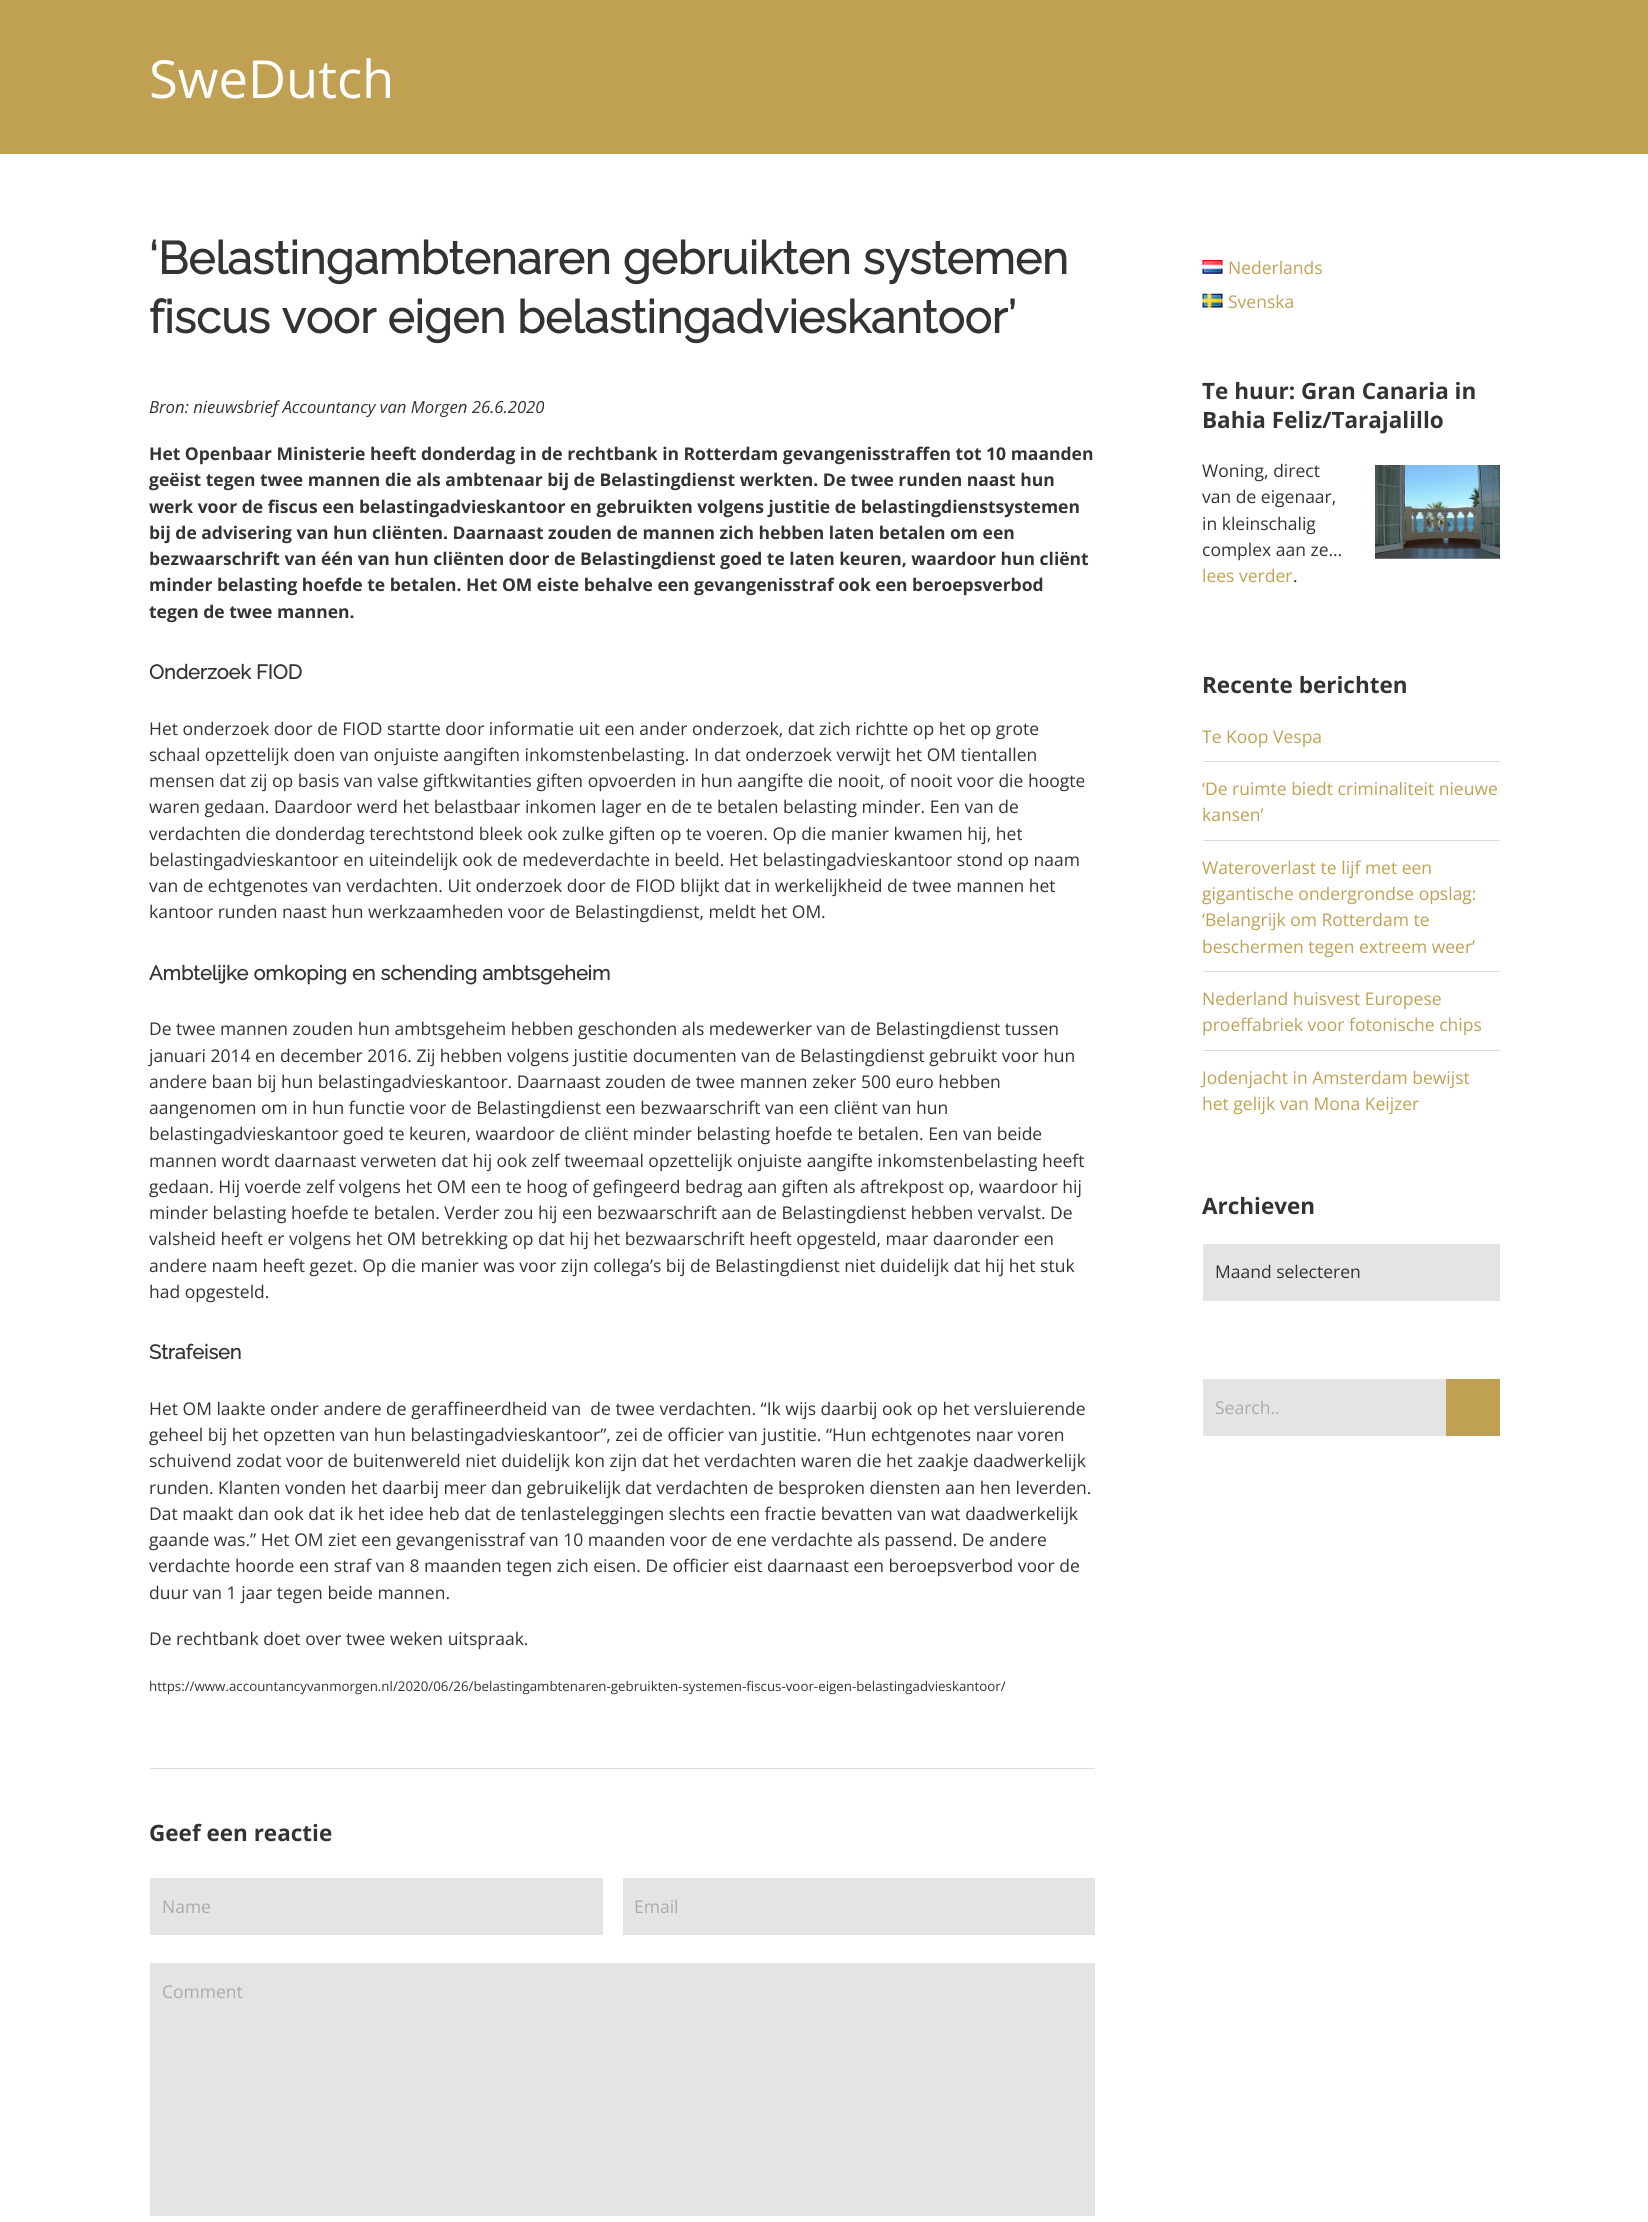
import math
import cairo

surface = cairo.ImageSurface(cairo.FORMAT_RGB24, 1648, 2222)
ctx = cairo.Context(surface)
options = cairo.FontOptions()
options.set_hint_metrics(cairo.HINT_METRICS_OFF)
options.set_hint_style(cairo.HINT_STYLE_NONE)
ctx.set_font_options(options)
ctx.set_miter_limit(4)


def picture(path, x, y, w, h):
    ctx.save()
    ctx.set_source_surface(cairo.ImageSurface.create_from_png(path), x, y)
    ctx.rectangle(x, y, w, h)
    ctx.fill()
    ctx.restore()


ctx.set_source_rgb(1, 1, 1)
ctx.paint()
ctx.set_source_rgb(0.753, 0.631, 0.329)
ctx.rectangle(0, 0, 1648, 154)
ctx.fill()
ctx.select_font_face("Open Sans")
ctx.set_font_size(52.5)
ctx.set_source_rgb(1, 1, 1)
ctx.move_to(149, 98)
ctx.show_text("SweDutch")
ctx.select_font_face("Raleway", cairo.FONT_SLANT_NORMAL, cairo.FONT_WEIGHT_BOLD)
ctx.set_font_size(45.5)
ctx.set_source_rgb(0.2, 0.2, 0.2)
ctx.move_to(149, 274)
ctx.show_text("‘Belastingambtenaren gebruikten systemen")
ctx.move_to(149, 333)
ctx.show_text("fiscus voor eigen belastingadvieskantoor’")
ctx.select_font_face("Open Sans", cairo.FONT_SLANT_ITALIC)
ctx.set_font_size(16.7)
ctx.move_to(149, 413)
ctx.show_text("Bron: nieuwsbrief Accountancy van Morgen 26.6.2020")
ctx.select_font_face("Open Sans", cairo.FONT_SLANT_NORMAL, cairo.FONT_WEIGHT_BOLD)
ctx.set_font_size(17.5)
ctx.move_to(149, 460)
ctx.show_text("Het Openbaar Ministerie heeft donderdag in de rechtbank in Rotterdam gevangenisstraffen tot 10 maanden")
ctx.move_to(149, 486)
ctx.show_text("geëist tegen twee mannen die als ambtenaar bij de Belastingdienst werkten. De twee runden naast hun")
ctx.move_to(149, 513)
ctx.show_text("werk voor de fiscus een belastingadvieskantoor en gebruikten volgens justitie de belastingdienstsystemen")
ctx.move_to(149, 539)
ctx.show_text("bij de advisering van hun cliënten. Daarnaast zouden de mannen zich hebben laten betalen om een")
ctx.move_to(149, 565)
ctx.show_text("bezwaarschrift van één van hun cliënten door de Belastingdienst goed te laten keuren, waardoor hun cliënt")
ctx.move_to(149, 591)
ctx.show_text("minder belasting hoefde te betalen. Het OM eiste behalve een gevangenisstraf ook een beroepsverbod")
ctx.move_to(149, 618)
ctx.show_text("tegen de twee mannen.")
ctx.select_font_face("Raleway", cairo.FONT_SLANT_NORMAL, cairo.FONT_WEIGHT_BOLD)
ctx.set_font_size(20)
ctx.move_to(149, 679)
ctx.show_text("Onderzoek FIOD")
ctx.select_font_face("Open Sans")
ctx.set_font_size(17.5)
ctx.move_to(149, 735)
ctx.show_text("Het onderzoek door de FIOD startte door informatie uit een ander onderzoek, dat zich richtte op het op grote")
ctx.move_to(149, 761)
ctx.show_text("schaal opzettelijk doen van onjuiste aangiften inkomstenbelasting. In dat onderzoek verwijt het OM tientallen")
ctx.move_to(149, 787)
ctx.show_text("mensen dat zij op basis van valse giftkwitanties giften opvoerden in hun aangifte die nooit, of nooit voor die hoogte")
ctx.move_to(149, 813)
ctx.show_text("waren gedaan. Daardoor werd het belastbaar inkomen lager en de te betalen belasting minder. Een van de")
ctx.move_to(149, 840)
ctx.show_text("verdachten die donderdag terechtstond bleek ook zulke giften op te voeren. Op die manier kwamen hij, het")
ctx.move_to(149, 866)
ctx.show_text("belastingadvieskantoor en uiteindelijk ook de medeverdachte in beeld. Het belastingadvieskantoor stond op naam")
ctx.move_to(149, 892)
ctx.show_text("van de echtgenotes van verdachten. Uit onderzoek door de FIOD blijkt dat in werkelijkheid de twee mannen het")
ctx.move_to(149, 918)
ctx.show_text("kantoor runden naast hun werkzaamheden voor de Belastingdienst, meldt het OM.")
ctx.select_font_face("Raleway", cairo.FONT_SLANT_NORMAL, cairo.FONT_WEIGHT_BOLD)
ctx.set_font_size(20)
ctx.move_to(149, 980)
ctx.show_text("Ambtelijke omkoping en schending ambtsgeheim")
ctx.select_font_face("Open Sans")
ctx.set_font_size(17.5)
ctx.move_to(149, 1035)
ctx.show_text("De twee mannen zouden hun ambtsgeheim hebben geschonden als medewerker van de Belastingdienst tussen")
ctx.move_to(149, 1062)
ctx.show_text("januari 2014 en december 2016. Zij hebben volgens justitie documenten van de Belastingdienst gebruikt voor hun")
ctx.move_to(149, 1088)
ctx.show_text("andere baan bij hun belastingadvieskantoor. Daarnaast zouden de twee mannen zeker 500 euro hebben")
ctx.move_to(149, 1114)
ctx.show_text("aangenomen om in hun functie voor de Belastingdienst een bezwaarschrift van een cliënt van hun")
ctx.move_to(149, 1140)
ctx.show_text("belastingadvieskantoor goed te keuren, waardoor de cliënt minder belasting hoefde te betalen. Een van beide")
ctx.move_to(149, 1167)
ctx.show_text("mannen wordt daarnaast verweten dat hij ook zelf tweemaal opzettelijk onjuiste aangifte inkomstenbelasting heeft")
ctx.move_to(149, 1193)
ctx.show_text("gedaan. Hij voerde zelf volgens het OM een te hoog of gefingeerd bedrag aan giften als aftrekpost op, waardoor hij")
ctx.move_to(149, 1219)
ctx.show_text("minder belasting hoefde te betalen. Verder zou hij een bezwaarschrift aan de Belastingdienst hebben vervalst. De")
ctx.move_to(149, 1245)
ctx.show_text("valsheid heeft er volgens het OM betrekking op dat hij het bezwaarschrift heeft opgesteld, maar daaronder een")
ctx.move_to(149, 1272)
ctx.show_text("andere naam heeft gezet. Op die manier was voor zijn collega’s bij de Belastingdienst niet duidelijk dat hij het stuk")
ctx.move_to(149, 1298)
ctx.show_text("had opgesteld.")
ctx.select_font_face("Raleway", cairo.FONT_SLANT_NORMAL, cairo.FONT_WEIGHT_BOLD)
ctx.set_font_size(20)
ctx.move_to(149, 1359)
ctx.show_text("Strafeisen")
ctx.select_font_face("Open Sans")
ctx.set_font_size(17.5)
ctx.move_to(149, 1415)
ctx.show_text("Het OM laakte onder andere de geraffineerdheid van  de twee verdachten. “Ik wijs daarbij ook op het versluierende")
ctx.move_to(149, 1441)
ctx.show_text("geheel bij het opzetten van hun belastingadvieskantoor”, zei de officier van justitie. “Hun echtgenotes naar voren")
ctx.move_to(149, 1467)
ctx.show_text("schuivend zodat voor de buitenwereld niet duidelijk kon zijn dat het verdachten waren die het zaakje daadwerkelijk")
ctx.move_to(149, 1494)
ctx.show_text("runden. Klanten vonden het daarbij meer dan gebruikelijk dat verdachten de besproken diensten aan hen leverden.")
ctx.move_to(149, 1520)
ctx.show_text("Dat maakt dan ook dat ik het idee heb dat de tenlasteleggingen slechts een fractie bevatten van wat daadwerkelijk")
ctx.move_to(149, 1546)
ctx.show_text("gaande was.” Het OM ziet een gevangenisstraf van 10 maanden voor de ene verdachte als passend. De andere")
ctx.move_to(149, 1572)
ctx.show_text("verdachte hoorde een straf van 8 maanden tegen zich eisen. De officier eist daarnaast een beroepsverbod voor de")
ctx.move_to(149, 1599)
ctx.show_text("duur van 1 jaar tegen beide mannen.")
ctx.move_to(149, 1645)
ctx.show_text("De rechtbank doet over twee weken uitspraak.")
ctx.set_font_size(13.33)
ctx.move_to(149, 1691)
ctx.show_text("https://www.accountancyvanmorgen.nl/2020/06/26/belastingambtenaren-gebruikten-systemen-fiscus-voor-eigen-belastingadvieskantoor/")
ctx.set_source_rgb(0.867, 0.867, 0.867)
ctx.rectangle(150, 1768, 945, 1)
ctx.fill()
ctx.select_font_face("Open Sans", cairo.FONT_SLANT_NORMAL, cairo.FONT_WEIGHT_BOLD)
ctx.set_font_size(22.5)
ctx.set_source_rgb(0.2, 0.2, 0.2)
ctx.move_to(149, 1841)
ctx.show_text("Geef een reactie")
ctx.set_source_rgb(0.894, 0.894, 0.894)
ctx.rectangle(150, 1878, 453, 57)
ctx.fill()
ctx.select_font_face("Open Sans")
ctx.set_font_size(17.5)
ctx.set_source_rgb(0.667, 0.667, 0.667)
ctx.move_to(162, 1913)
ctx.show_text("Name")
ctx.set_source_rgb(0.894, 0.894, 0.894)
ctx.rectangle(623, 1878, 472, 57)
ctx.fill()
ctx.set_source_rgb(0.667, 0.667, 0.667)
ctx.move_to(634, 1913)
ctx.show_text("Email")
ctx.set_source_rgb(0.894, 0.894, 0.894)
ctx.rectangle(150, 1963, 945, 253)
ctx.fill()
ctx.set_source_rgb(0.667, 0.667, 0.667)
ctx.move_to(162, 1998)
ctx.show_text("Comment")
picture("img1.png", 1202, 260, 21, 14)
ctx.set_source_rgb(0.753, 0.631, 0.329)
ctx.move_to(1228, 274)
ctx.show_text("Nederlands")
picture("img2.png", 1202, 293, 21, 15)
ctx.move_to(1228, 308)
ctx.show_text("Svenska")
ctx.select_font_face("Open Sans", cairo.FONT_SLANT_NORMAL, cairo.FONT_WEIGHT_BOLD)
ctx.set_font_size(22.5)
ctx.set_source_rgb(0.2, 0.2, 0.2)
ctx.move_to(1202, 399)
ctx.show_text("Te huur: Gran Canaria in")
ctx.move_to(1202, 428)
ctx.show_text("Bahia Feliz/Tarajalillo")
ctx.select_font_face("Open Sans")
ctx.set_font_size(17.5)
ctx.move_to(1202, 477)
ctx.show_text("Woning, direct")
picture("img3.png", 1375, 465, 125, 94)
ctx.move_to(1202, 503)
ctx.show_text("van de eigenaar,")
ctx.move_to(1202, 530)
ctx.show_text("in kleinschalig")
ctx.move_to(1202, 556)
ctx.show_text("complex aan ze…")
ctx.set_source_rgb(0.753, 0.631, 0.329)
ctx.move_to(1202, 582)
ctx.show_text("lees verder")
ctx.set_source_rgb(0.2, 0.2, 0.2)
ctx.move_to(1293, 582)
ctx.show_text(".")
ctx.select_font_face("Open Sans", cairo.FONT_SLANT_NORMAL, cairo.FONT_WEIGHT_BOLD)
ctx.set_font_size(22.5)
ctx.move_to(1202, 693)
ctx.show_text("Recente berichten")
ctx.set_source_rgb(0.867, 0.867, 0.867)
ctx.rectangle(1203, 761, 297, 1)
ctx.fill()
ctx.select_font_face("Open Sans")
ctx.set_font_size(17.5)
ctx.set_source_rgb(0.753, 0.631, 0.329)
ctx.move_to(1202, 743)
ctx.show_text("Te Koop Vespa")
ctx.set_source_rgb(0.867, 0.867, 0.867)
ctx.rectangle(1203, 840, 297, 1)
ctx.fill()
ctx.set_source_rgb(0.753, 0.631, 0.329)
ctx.move_to(1202, 795)
ctx.show_text("‘De ruimte biedt criminaliteit nieuwe")
ctx.move_to(1202, 821)
ctx.show_text("kansen’")
ctx.set_source_rgb(0.867, 0.867, 0.867)
ctx.rectangle(1203, 971, 297, 1)
ctx.fill()
ctx.set_source_rgb(0.753, 0.631, 0.329)
ctx.move_to(1202, 874)
ctx.show_text("Wateroverlast te lijf met een")
ctx.move_to(1202, 900)
ctx.show_text("gigantische ondergrondse opslag:")
ctx.move_to(1202, 926)
ctx.show_text("‘Belangrijk om Rotterdam te")
ctx.move_to(1202, 953)
ctx.show_text("beschermen tegen extreem weer’")
ctx.set_source_rgb(0.867, 0.867, 0.867)
ctx.rectangle(1203, 1050, 297, 1)
ctx.fill()
ctx.set_source_rgb(0.753, 0.631, 0.329)
ctx.move_to(1202, 1005)
ctx.show_text("Nederland huisvest Europese")
ctx.move_to(1202, 1031)
ctx.show_text("proeffabriek voor fotonische chips")
ctx.move_to(1202, 1084)
ctx.show_text("Jodenjacht in Amsterdam bewijst")
ctx.move_to(1202, 1110)
ctx.show_text("het gelijk van Mona Keijzer")
ctx.select_font_face("Open Sans", cairo.FONT_SLANT_NORMAL, cairo.FONT_WEIGHT_BOLD)
ctx.set_font_size(22.5)
ctx.set_source_rgb(0.2, 0.2, 0.2)
ctx.move_to(1202, 1214)
ctx.show_text("Archieven")
ctx.set_source_rgb(0.894, 0.894, 0.894)
ctx.rectangle(1203, 1244, 297, 57)
ctx.fill()
ctx.select_font_face("Open Sans")
ctx.set_font_size(17.5)
ctx.set_source_rgb(0.2, 0.2, 0.2)
ctx.move_to(1215, 1278)
ctx.show_text("Maand selecteren")
ctx.set_source_rgb(0.894, 0.894, 0.894)
ctx.rectangle(1203, 1379, 243, 57)
ctx.fill()
ctx.set_source_rgb(0.667, 0.667, 0.667)
ctx.move_to(1215, 1414)
ctx.show_text("Search..")
ctx.set_source_rgb(0.753, 0.631, 0.329)
ctx.rectangle(1446, 1379, 54, 57)
ctx.fill()
surface.write_to_png("page.png")
